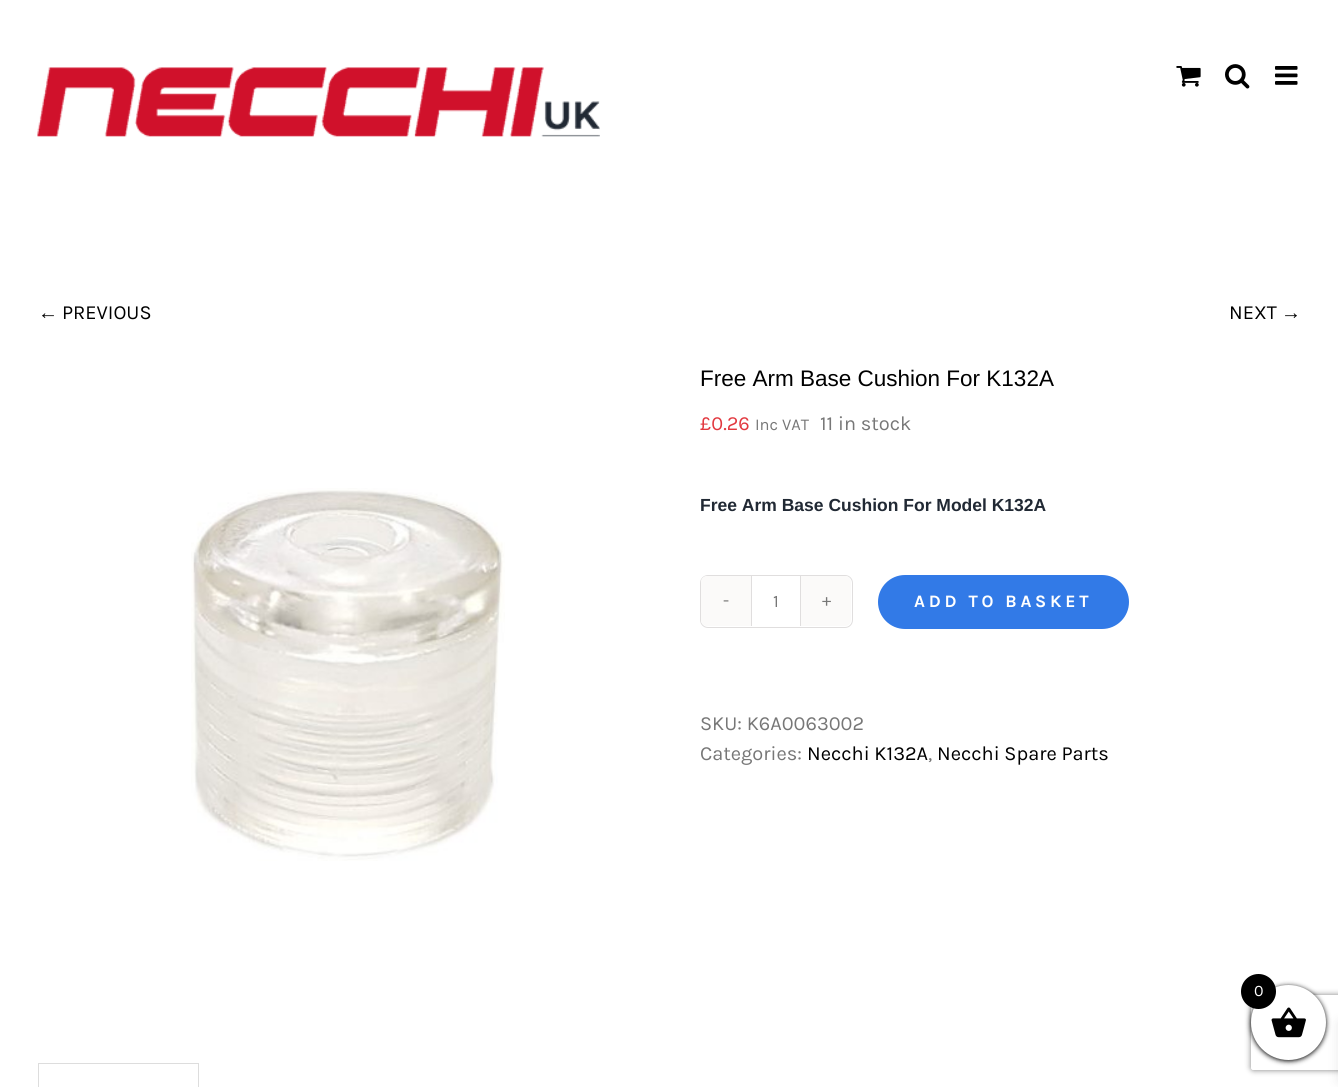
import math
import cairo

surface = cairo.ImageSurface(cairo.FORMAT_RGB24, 1338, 1087)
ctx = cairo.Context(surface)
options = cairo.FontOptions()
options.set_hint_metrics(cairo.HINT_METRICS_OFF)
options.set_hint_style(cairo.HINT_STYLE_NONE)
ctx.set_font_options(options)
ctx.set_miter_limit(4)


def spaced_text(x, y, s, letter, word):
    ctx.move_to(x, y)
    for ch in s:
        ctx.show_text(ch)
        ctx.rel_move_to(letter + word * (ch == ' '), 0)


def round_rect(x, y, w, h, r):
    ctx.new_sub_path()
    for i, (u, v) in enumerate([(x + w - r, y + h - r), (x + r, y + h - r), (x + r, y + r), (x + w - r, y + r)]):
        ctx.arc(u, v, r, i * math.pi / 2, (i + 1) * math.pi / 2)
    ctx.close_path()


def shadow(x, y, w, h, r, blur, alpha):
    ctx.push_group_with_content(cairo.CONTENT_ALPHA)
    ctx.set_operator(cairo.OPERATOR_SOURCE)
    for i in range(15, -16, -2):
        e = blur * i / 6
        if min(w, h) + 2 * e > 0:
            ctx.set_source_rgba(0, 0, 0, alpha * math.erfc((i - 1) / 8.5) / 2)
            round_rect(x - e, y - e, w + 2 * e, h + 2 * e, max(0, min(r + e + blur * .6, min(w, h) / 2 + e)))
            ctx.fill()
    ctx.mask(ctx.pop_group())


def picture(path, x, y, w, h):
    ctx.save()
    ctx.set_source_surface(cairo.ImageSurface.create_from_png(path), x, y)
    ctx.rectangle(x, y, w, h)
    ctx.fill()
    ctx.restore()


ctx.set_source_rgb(1, 1, 1)
ctx.paint()
picture("img1.png", 37, 67, 563, 70)
picture("img2.png", 1176, 66, 25, 21)
picture("img3.png", 1225, 64, 25, 25)
picture("img4.png", 1275, 66, 23, 19)
ctx.select_font_face("Liberation Sans")
ctx.set_font_size(20)
ctx.set_source_rgb(0, 0, 0)
ctx.move_to(38, 319)
ctx.show_text("←")
ctx.select_font_face("Karla")
ctx.move_to(62, 319)
ctx.show_text("PREVIOUS")
ctx.move_to(1229, 319)
ctx.show_text("NEXT")
ctx.select_font_face("Liberation Sans")
ctx.move_to(1281, 319)
ctx.show_text("→")
picture("img5.png", 191, 488, 314, 373)
ctx.set_font_size(22.5)
ctx.move_to(700, 386)
ctx.show_text("Free Arm Base Cushion For K132A")
ctx.select_font_face("Karla")
ctx.set_font_size(20)
ctx.set_source_rgb(0.886, 0.22, 0.247)
ctx.move_to(700, 430)
ctx.show_text("£0.26")
ctx.set_font_size(16.5)
ctx.set_source_rgb(0.467, 0.467, 0.467)
ctx.move_to(755, 430)
ctx.show_text("Inc VAT")
ctx.set_font_size(20)
ctx.move_to(820, 430)
ctx.show_text("11 in stock")
ctx.select_font_face("Liberation Sans", cairo.FONT_SLANT_NORMAL, cairo.FONT_WEIGHT_BOLD)
ctx.set_font_size(17.5)
ctx.set_source_rgb(0.129, 0.161, 0.204)
ctx.move_to(700, 511)
ctx.show_text("Free Arm Base Cushion For Model K132A")
round_rect(700.5, 575.5, 152, 52, 7.5)
ctx.set_source_rgb(0.878, 0.871, 0.871)
ctx.set_line_width(1)
ctx.stroke()
ctx.set_source_rgb(0.984, 0.98, 0.976)
ctx.new_path()
ctx.move_to(707, 576)
ctx.line_to(751, 576)
ctx.line_to(751, 626)
ctx.line_to(707, 626)
ctx.curve_to(703.5, 626, 701, 623.5, 701, 620)
ctx.line_to(701, 582)
ctx.curve_to(701, 578.5, 703.5, 576, 707, 576)
ctx.close_path()
ctx.fill()
ctx.select_font_face("Karla")
ctx.set_source_rgb(0.467, 0.467, 0.467)
ctx.move_to(723, 606)
ctx.show_text("-")
ctx.set_source_rgb(0.878, 0.871, 0.871)
ctx.rectangle(800, 576, 1, 50)
ctx.fill()
ctx.rectangle(751, 576, 1, 50)
ctx.fill()
ctx.set_source_rgb(0.467, 0.467, 0.467)
ctx.move_to(773, 607)
ctx.show_text("1")
ctx.set_source_rgb(0.984, 0.98, 0.976)
ctx.new_path()
ctx.move_to(801, 576)
ctx.line_to(845, 576)
ctx.curve_to(848.5, 576, 851, 578.5, 851, 582)
ctx.line_to(851, 620)
ctx.curve_to(851, 623.5, 848.5, 626, 845, 626)
ctx.line_to(801, 626)
ctx.close_path()
ctx.fill()
ctx.set_source_rgb(0.467, 0.467, 0.467)
ctx.move_to(822, 606)
ctx.show_text("+")
ctx.set_source_rgb(0.196, 0.478, 0.906)
round_rect(878, 575, 251, 54, 27)
ctx.fill()
ctx.select_font_face("Karla", cairo.FONT_SLANT_NORMAL, cairo.FONT_WEIGHT_BOLD)
ctx.set_source_rgb(1, 1, 1)
spaced_text(914, 607, "ADD TO BASKET", 3.75, 0)
ctx.select_font_face("Karla")
ctx.set_font_size(20)
ctx.set_source_rgb(0.467, 0.467, 0.467)
ctx.move_to(700, 730)
ctx.show_text("SKU: K6A0063002")
ctx.move_to(700, 760)
ctx.show_text("Categories:")
ctx.set_source_rgb(0, 0, 0)
ctx.move_to(807, 760)
ctx.show_text("Necchi K132A")
ctx.set_source_rgb(0.467, 0.467, 0.467)
ctx.move_to(928, 760)
ctx.show_text(",")
ctx.set_source_rgb(0, 0, 0)
ctx.move_to(937, 760)
ctx.show_text("Necchi Spare Parts")
ctx.set_source_rgb(0.867, 0.867, 0.867)
ctx.rectangle(38, 1063, 161, 1)
ctx.fill()
ctx.rectangle(198, 1063, 1, 24)
ctx.fill()
ctx.rectangle(38, 1063, 1, 24)
ctx.fill()
ctx.save()
ctx.set_fill_rule(cairo.FILL_RULE_EVEN_ODD)
ctx.new_path()
ctx.move_to(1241, 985)
ctx.line_to(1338, 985)
ctx.line_to(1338, 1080)
ctx.line_to(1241, 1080)
ctx.close_path()
ctx.move_to(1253.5, 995)
ctx.line_to(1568.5, 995)
ctx.curve_to(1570, 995, 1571, 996, 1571, 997.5)
ctx.line_to(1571, 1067.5)
ctx.curve_to(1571, 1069, 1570, 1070, 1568.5, 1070)
ctx.line_to(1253.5, 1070)
ctx.curve_to(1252, 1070, 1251, 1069, 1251, 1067.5)
ctx.line_to(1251, 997.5)
ctx.curve_to(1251, 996, 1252, 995, 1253.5, 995)
ctx.close_path()
ctx.clip()
ctx.set_source_rgb(0.502, 0.502, 0.502)
shadow(1251, 995, 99, 75, 2.5, 3, 1)
ctx.restore()
ctx.set_source_rgb(0, 0, 0)
shadow(1251, 986, 75, 75, 37.5, 2.5, 1)
shadow(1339, 1023, 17, 58, 0, 6, 0.1)
ctx.set_source_rgb(1, 1, 1)
ctx.arc(1288.5, 1022.5, 37.5, 0, 2 * math.pi)
ctx.fill()
picture("img6.png", 1271, 1007, 35, 31)
ctx.set_source_rgb(0, 0, 0)
ctx.arc(1258.5, 991.5, 17.5, 0, 2 * math.pi)
ctx.fill()
ctx.set_font_size(16)
ctx.set_source_rgb(1, 1, 1)
ctx.move_to(1254, 996)
ctx.show_text("0")
surface.write_to_png("page.png")
